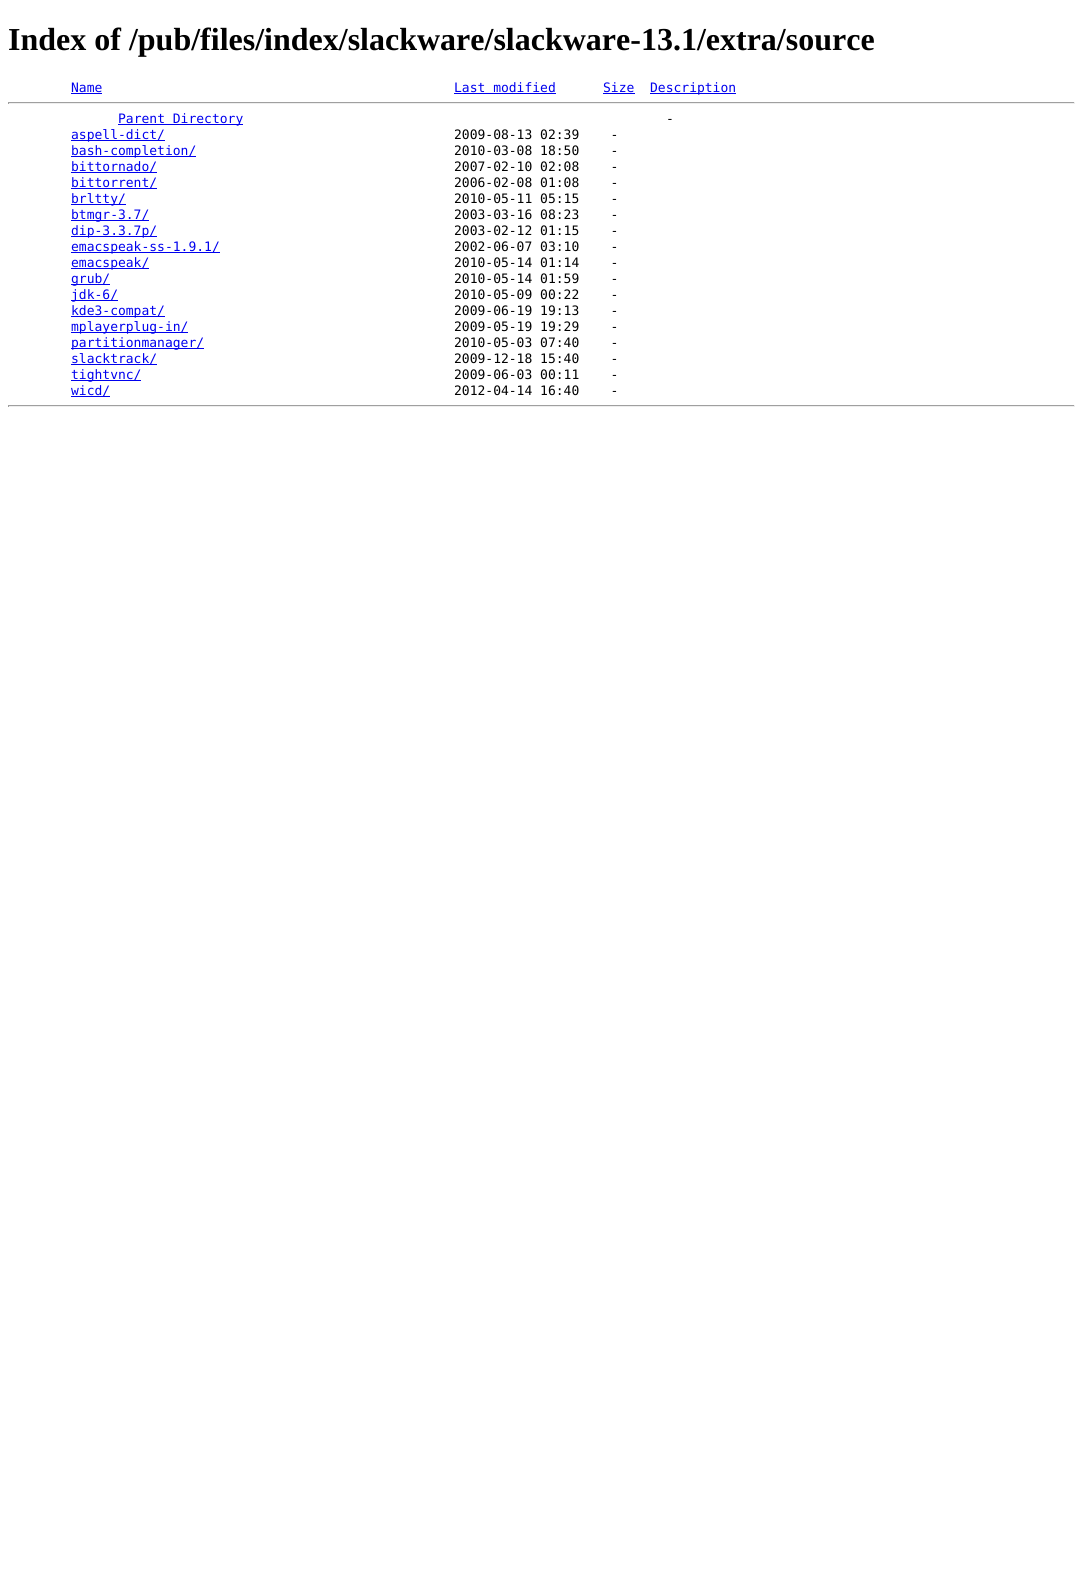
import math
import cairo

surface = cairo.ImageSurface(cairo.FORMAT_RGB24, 1083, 1577)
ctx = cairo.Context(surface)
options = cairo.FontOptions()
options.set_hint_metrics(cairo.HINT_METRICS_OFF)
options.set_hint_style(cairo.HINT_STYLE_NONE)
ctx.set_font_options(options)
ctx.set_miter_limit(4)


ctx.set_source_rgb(1, 1, 1)
ctx.paint()
ctx.select_font_face("Liberation Serif", cairo.FONT_SLANT_NORMAL, cairo.FONT_WEIGHT_BOLD)
ctx.set_font_size(32)
ctx.set_source_rgb(0, 0, 0)
ctx.move_to(8, 50)
ctx.show_text("Index of /pub/files/index/slackware/slackware-13.1/extra/source")
ctx.select_font_face("DejaVu Sans Mono")
ctx.set_font_size(13)
ctx.set_source_rgb(0, 0, 0.933)
ctx.move_to(71, 92)
ctx.show_text("Name")
ctx.rectangle(71, 93, 31, 1)
ctx.fill()
ctx.move_to(454, 92)
ctx.show_text("Last modified")
ctx.rectangle(454, 93, 102, 1)
ctx.fill()
ctx.move_to(603, 92)
ctx.show_text("Size")
ctx.rectangle(603, 93, 32, 1)
ctx.fill()
ctx.rectangle(650, 93, 86, 1)
ctx.fill()
ctx.move_to(650, 92)
ctx.show_text("Description")
ctx.set_source_rgb(0.624, 0.624, 0.624)
ctx.rectangle(8, 102, 1067, 1)
ctx.fill()
ctx.set_source_rgb(0.933, 0.933, 0.933)
ctx.rectangle(1074, 102, 1, 2)
ctx.fill()
ctx.rectangle(8, 103, 1067, 1)
ctx.fill()
ctx.set_source_rgb(0.624, 0.624, 0.624)
ctx.rectangle(8, 102, 1, 2)
ctx.fill()
ctx.set_source_rgb(0, 0, 0.933)
ctx.rectangle(118, 124, 125, 1)
ctx.fill()
ctx.move_to(118, 123)
ctx.show_text("Parent Directory")
ctx.set_source_rgb(0, 0, 0)
ctx.move_to(666, 123)
ctx.show_text("-")
ctx.set_source_rgb(0, 0, 0.933)
ctx.rectangle(71, 140, 94, 1)
ctx.fill()
ctx.move_to(71, 139)
ctx.show_text("aspell-dict/")
ctx.set_source_rgb(0, 0, 0)
ctx.move_to(454, 139)
ctx.show_text("2009-08-13 02:39    -")
ctx.set_source_rgb(0, 0, 0.933)
ctx.rectangle(71, 156, 125, 1)
ctx.fill()
ctx.move_to(71, 155)
ctx.show_text("bash-completion/")
ctx.set_source_rgb(0, 0, 0)
ctx.move_to(454, 155)
ctx.show_text("2010-03-08 18:50    -")
ctx.set_source_rgb(0, 0, 0.933)
ctx.rectangle(71, 172, 86, 1)
ctx.fill()
ctx.move_to(71, 171)
ctx.show_text("bittornado/")
ctx.set_source_rgb(0, 0, 0)
ctx.move_to(454, 171)
ctx.show_text("2007-02-10 02:08    -")
ctx.set_source_rgb(0, 0, 0.933)
ctx.rectangle(71, 188, 86, 1)
ctx.fill()
ctx.move_to(71, 187)
ctx.show_text("bittorrent/")
ctx.set_source_rgb(0, 0, 0)
ctx.move_to(454, 187)
ctx.show_text("2006-02-08 01:08    -")
ctx.set_source_rgb(0, 0, 0.933)
ctx.rectangle(71, 204, 55, 1)
ctx.fill()
ctx.move_to(71, 203)
ctx.show_text("brltty/")
ctx.set_source_rgb(0, 0, 0)
ctx.move_to(454, 203)
ctx.show_text("2010-05-11 05:15    -")
ctx.set_source_rgb(0, 0, 0.933)
ctx.rectangle(71, 220, 78, 1)
ctx.fill()
ctx.move_to(71, 219)
ctx.show_text("btmgr-3.7/")
ctx.set_source_rgb(0, 0, 0)
ctx.move_to(454, 219)
ctx.show_text("2003-03-16 08:23    -")
ctx.set_source_rgb(0, 0, 0.933)
ctx.rectangle(71, 236, 86, 1)
ctx.fill()
ctx.move_to(71, 235)
ctx.show_text("dip-3.3.7p/")
ctx.set_source_rgb(0, 0, 0)
ctx.move_to(454, 235)
ctx.show_text("2003-02-12 01:15    -")
ctx.set_source_rgb(0, 0, 0.933)
ctx.rectangle(71, 252, 149, 1)
ctx.fill()
ctx.move_to(71, 251)
ctx.show_text("emacspeak-ss-1.9.1/")
ctx.set_source_rgb(0, 0, 0)
ctx.move_to(454, 251)
ctx.show_text("2002-06-07 03:10    -")
ctx.set_source_rgb(0, 0, 0.933)
ctx.rectangle(71, 268, 78, 1)
ctx.fill()
ctx.move_to(71, 267)
ctx.show_text("emacspeak/")
ctx.set_source_rgb(0, 0, 0)
ctx.move_to(454, 267)
ctx.show_text("2010-05-14 01:14    -")
ctx.set_source_rgb(0, 0, 0.933)
ctx.rectangle(71, 284, 39, 1)
ctx.fill()
ctx.move_to(71, 283)
ctx.show_text("grub/")
ctx.set_source_rgb(0, 0, 0)
ctx.move_to(454, 283)
ctx.show_text("2010-05-14 01:59    -")
ctx.set_source_rgb(0, 0, 0.933)
ctx.rectangle(71, 300, 47, 1)
ctx.fill()
ctx.move_to(71, 299)
ctx.show_text("jdk-6/")
ctx.set_source_rgb(0, 0, 0)
ctx.move_to(454, 299)
ctx.show_text("2010-05-09 00:22    -")
ctx.set_source_rgb(0, 0, 0.933)
ctx.rectangle(71, 316, 94, 1)
ctx.fill()
ctx.move_to(71, 315)
ctx.show_text("kde3-compat/")
ctx.set_source_rgb(0, 0, 0)
ctx.move_to(454, 315)
ctx.show_text("2009-06-19 19:13    -")
ctx.set_source_rgb(0, 0, 0.933)
ctx.rectangle(71, 332, 117, 1)
ctx.fill()
ctx.move_to(71, 331)
ctx.show_text("mplayerplug-in/")
ctx.set_source_rgb(0, 0, 0)
ctx.move_to(454, 331)
ctx.show_text("2009-05-19 19:29    -")
ctx.set_source_rgb(0, 0, 0.933)
ctx.rectangle(71, 348, 133, 1)
ctx.fill()
ctx.move_to(71, 347)
ctx.show_text("partitionmanager/")
ctx.set_source_rgb(0, 0, 0)
ctx.move_to(454, 347)
ctx.show_text("2010-05-03 07:40    -")
ctx.set_source_rgb(0, 0, 0.933)
ctx.rectangle(71, 364, 86, 1)
ctx.fill()
ctx.move_to(71, 363)
ctx.show_text("slacktrack/")
ctx.set_source_rgb(0, 0, 0)
ctx.move_to(454, 363)
ctx.show_text("2009-12-18 15:40    -")
ctx.set_source_rgb(0, 0, 0.933)
ctx.rectangle(71, 380, 70, 1)
ctx.fill()
ctx.move_to(71, 379)
ctx.show_text("tightvnc/")
ctx.set_source_rgb(0, 0, 0)
ctx.move_to(454, 379)
ctx.show_text("2009-06-03 00:11    -")
ctx.set_source_rgb(0, 0, 0.933)
ctx.rectangle(71, 396, 39, 1)
ctx.fill()
ctx.move_to(71, 395)
ctx.show_text("wicd/")
ctx.set_source_rgb(0, 0, 0)
ctx.move_to(454, 395)
ctx.show_text("2012-04-14 16:40    -")
ctx.set_source_rgb(0.624, 0.624, 0.624)
ctx.rectangle(8, 405, 1067, 1)
ctx.fill()
ctx.set_source_rgb(0.933, 0.933, 0.933)
ctx.rectangle(1074, 405, 1, 2)
ctx.fill()
ctx.rectangle(8, 406, 1067, 1)
ctx.fill()
ctx.set_source_rgb(0.624, 0.624, 0.624)
ctx.rectangle(8, 405, 1, 2)
ctx.fill()
surface.write_to_png("page.png")
